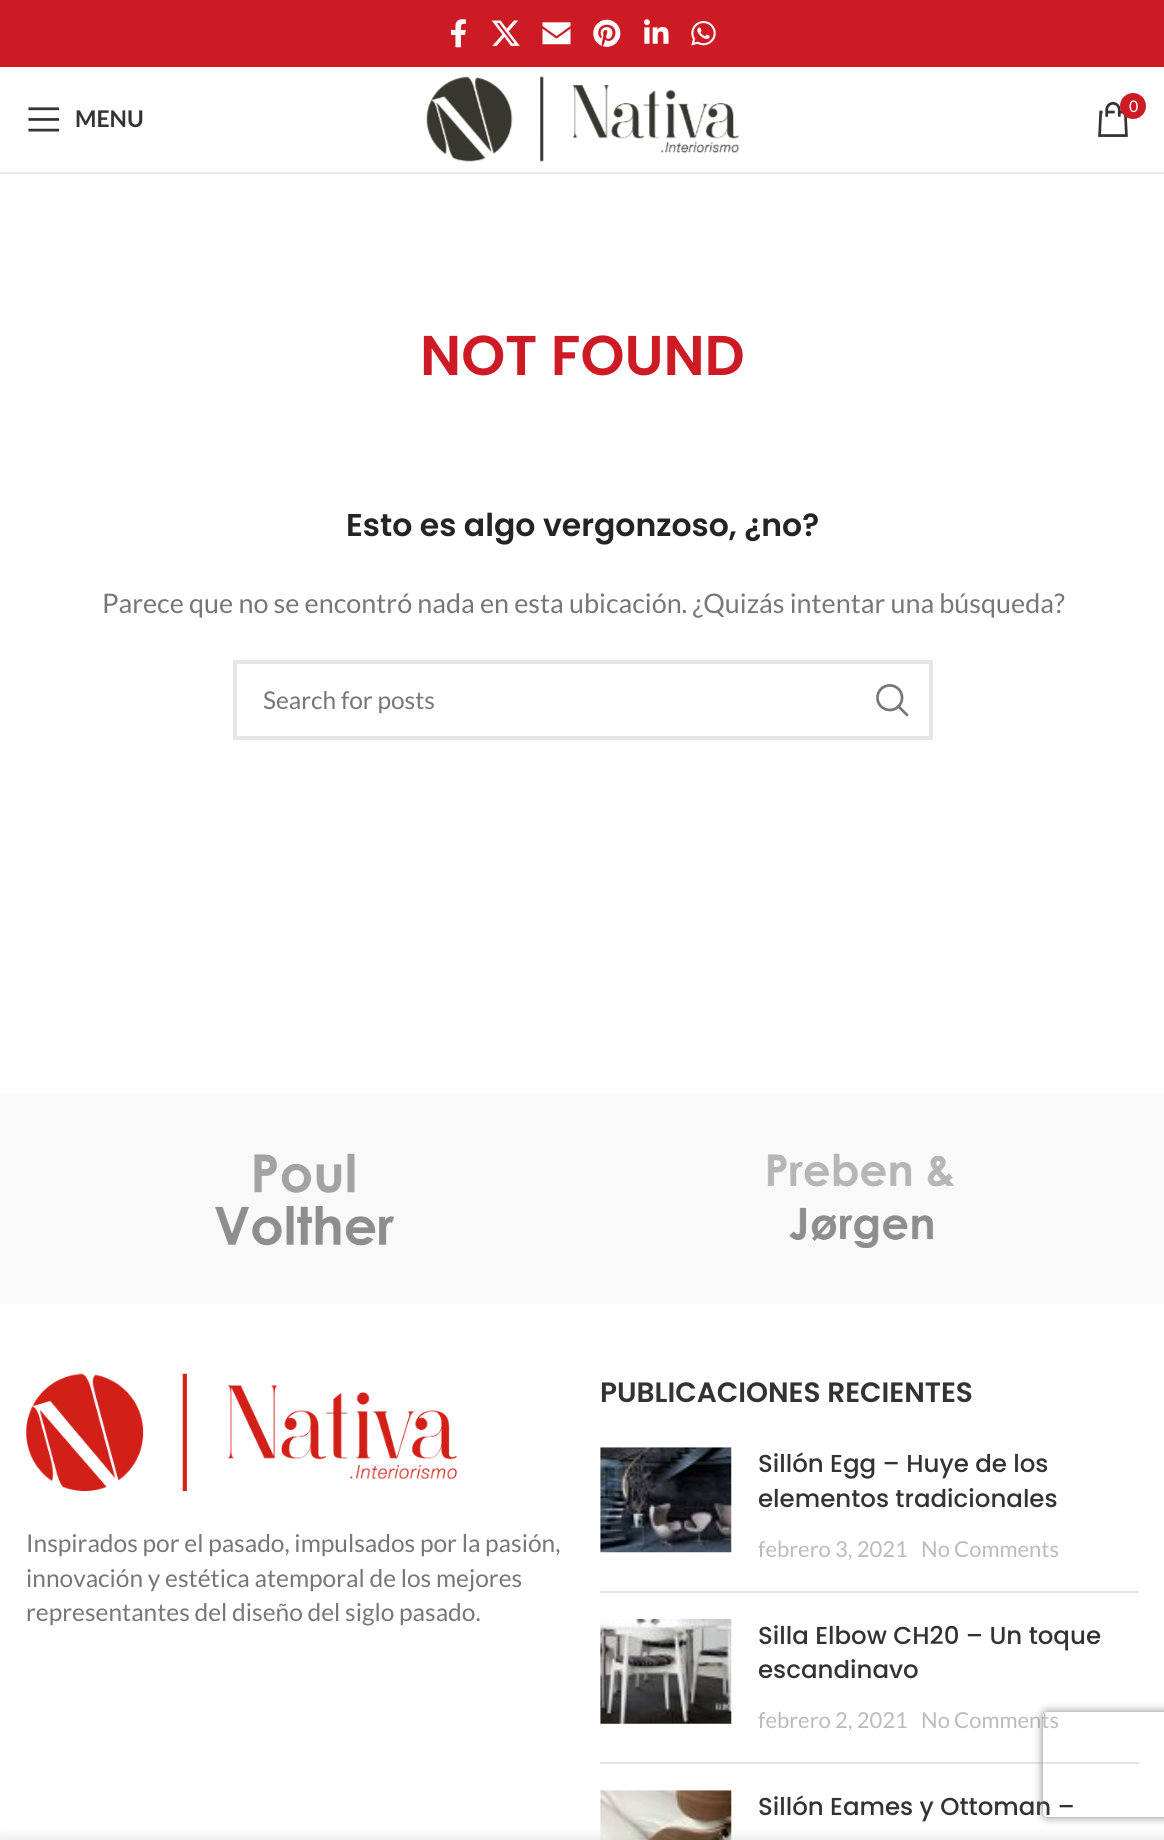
import math
import cairo

surface = cairo.ImageSurface(cairo.FORMAT_RGB24, 1164, 1840)
ctx = cairo.Context(surface)
options = cairo.FontOptions()
options.set_hint_metrics(cairo.HINT_METRICS_OFF)
options.set_hint_style(cairo.HINT_STYLE_NONE)
ctx.set_font_options(options)
ctx.set_miter_limit(4)


def round_rect(x, y, w, h, r):
    ctx.new_sub_path()
    for i, (u, v) in enumerate([(x + w - r, y + h - r), (x + r, y + h - r), (x + r, y + r), (x + w - r, y + r)]):
        ctx.arc(u, v, r, i * math.pi / 2, (i + 1) * math.pi / 2)
    ctx.close_path()


def shadow(x, y, w, h, r, blur, alpha):
    ctx.push_group_with_content(cairo.CONTENT_ALPHA)
    ctx.set_operator(cairo.OPERATOR_SOURCE)
    for i in range(15, -16, -2):
        e = blur * i / 6
        if min(w, h) + 2 * e > 0:
            ctx.set_source_rgba(0, 0, 0, alpha * math.erfc((i - 1) / 8.5) / 2)
            round_rect(x - e, y - e, w + 2 * e, h + 2 * e, max(0, min(r + e + blur * .6, min(w, h) / 2 + e)))
            ctx.fill()
    ctx.mask(ctx.pop_group())


def picture(path, x, y, w, h):
    ctx.save()
    ctx.set_source_surface(cairo.ImageSurface.create_from_png(path), x, y)
    ctx.rectangle(x, y, w, h)
    ctx.fill()
    ctx.restore()


ctx.set_source_rgb(1, 1, 1)
ctx.paint()
ctx.set_source_rgb(0.804, 0.106, 0.149)
ctx.rectangle(0, 0, 1164, 67)
ctx.fill()
picture("img1.png", 451, 19, 15, 29)
picture("img2.png", 491, 20, 29, 26)
picture("img3.png", 542, 22, 29, 23)
picture("img4.png", 593, 19, 28, 28)
picture("img5.png", 644, 19, 25, 25)
picture("img6.png", 691, 21, 25, 25)
ctx.set_source_rgb(0.91, 0.91, 0.91)
ctx.rectangle(0, 172, 1164, 2)
ctx.fill()
picture("img7.png", 426, 76, 314, 86)
picture("img8.png", 1098, 102, 30, 35)
ctx.set_source_rgb(0.804, 0.106, 0.149)
ctx.arc(1133, 106, 13, 0, 2 * math.pi)
ctx.fill()
ctx.select_font_face("Lato")
ctx.set_font_size(16)
ctx.set_source_rgb(1, 1, 1)
ctx.move_to(1129, 112)
ctx.show_text("0")
picture("img9.png", 28, 107, 32, 25)
ctx.select_font_face("Lato", cairo.FONT_SLANT_NORMAL, cairo.FONT_WEIGHT_BOLD)
ctx.set_font_size(23)
ctx.set_source_rgb(0.2, 0.2, 0.2)
ctx.move_to(75, 127)
ctx.show_text("MENU")
ctx.select_font_face("Poppins SemiBold")
ctx.set_font_size(56)
ctx.set_source_rgb(0.804, 0.106, 0.149)
ctx.move_to(420, 375)
ctx.show_text("NOT FOUND")
ctx.set_font_size(31.5)
ctx.set_source_rgb(0.141, 0.141, 0.141)
ctx.move_to(346, 536)
ctx.show_text("Esto es algo vergonzoso, ¿no?")
ctx.select_font_face("Lato")
ctx.set_font_size(26.95)
ctx.set_source_rgb(0.467, 0.467, 0.467)
ctx.move_to(102, 613)
ctx.show_text("Parece que no se encontró nada en esta ubicación. ¿Quizás intentar una búsqueda?")
ctx.rectangle(235, 662, 696, 76)
ctx.set_source_rgb(0.902, 0.902, 0.902)
ctx.set_line_width(4)
ctx.stroke()
ctx.set_font_size(24.5)
ctx.set_source_rgb(0.467, 0.467, 0.467)
ctx.move_to(263, 709)
ctx.show_text("Search for posts")
picture("img10.png", 876, 684, 33, 33)
ctx.set_source_rgb(0.976, 0.976, 0.976)
ctx.rectangle(0, 1094, 1164, 210)
ctx.fill()
picture("img11.png", 215, 1153, 180, 93)
picture("img12.png", 767, 1153, 188, 95)
picture("img13.png", 26, 1373, 431, 118)
ctx.set_source_rgb(0.467, 0.467, 0.467)
ctx.move_to(26, 1552)
ctx.show_text("Inspirados por el pasado, impulsados por la pasión,")
ctx.move_to(26, 1587)
ctx.show_text("innovación y estética atemporal de los mejores")
ctx.move_to(26, 1621)
ctx.show_text("representantes del diseño del siglo pasado.")
ctx.select_font_face("Poppins SemiBold")
ctx.set_font_size(28)
ctx.set_source_rgb(0.2, 0.2, 0.2)
ctx.move_to(600, 1402)
ctx.show_text("PUBLICACIONES RECIENTES")
ctx.set_source_rgb(0.894, 0.894, 0.894)
ctx.rectangle(600, 1591, 539, 2)
ctx.fill()
picture("img14.png", 600, 1447, 132, 106)
ctx.select_font_face("Poppins Medium")
ctx.set_font_size(24.5)
ctx.set_source_rgb(0.2, 0.2, 0.2)
ctx.move_to(758, 1472)
ctx.show_text("Sillón Egg – Huye de los")
ctx.move_to(758, 1507)
ctx.show_text("elementos tradicionales")
ctx.select_font_face("Lato")
ctx.set_font_size(22)
ctx.set_source_rgb(0.733, 0.733, 0.733)
ctx.move_to(758, 1557)
ctx.show_text("febrero 3, 2021")
ctx.move_to(921, 1557)
ctx.show_text("No Comments")
ctx.set_source_rgb(0.894, 0.894, 0.894)
ctx.rectangle(600, 1762, 539, 2)
ctx.fill()
picture("img15.png", 600, 1618, 132, 106)
ctx.select_font_face("Poppins Medium")
ctx.set_font_size(24.5)
ctx.set_source_rgb(0.2, 0.2, 0.2)
ctx.move_to(758, 1644)
ctx.show_text("Silla Elbow CH20 – Un toque")
ctx.move_to(758, 1678)
ctx.show_text("escandinavo")
ctx.select_font_face("Lato")
ctx.set_font_size(22)
ctx.set_source_rgb(0.733, 0.733, 0.733)
ctx.move_to(758, 1728)
ctx.show_text("febrero 2, 2021")
ctx.move_to(921, 1728)
ctx.show_text("No Comments")
picture("img16.png", 600, 1790, 132, 50)
ctx.select_font_face("Poppins Medium")
ctx.set_font_size(24.5)
ctx.set_source_rgb(0.2, 0.2, 0.2)
ctx.move_to(758, 1815)
ctx.show_text("Sillón Eames y Ottoman –")
ctx.save()
ctx.set_fill_rule(cairo.FILL_RULE_EVEN_ODD)
ctx.new_path()
ctx.move_to(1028, 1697)
ctx.line_to(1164, 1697)
ctx.line_to(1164, 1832)
ctx.line_to(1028, 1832)
ctx.close_path()
ctx.move_to(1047, 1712)
ctx.line_to(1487, 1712)
ctx.curve_to(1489, 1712, 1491, 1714, 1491, 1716)
ctx.line_to(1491, 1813)
ctx.curve_to(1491, 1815, 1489, 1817, 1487, 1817)
ctx.line_to(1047, 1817)
ctx.curve_to(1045, 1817, 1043, 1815, 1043, 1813)
ctx.line_to(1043, 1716)
ctx.curve_to(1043, 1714, 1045, 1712, 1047, 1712)
ctx.close_path()
ctx.clip()
ctx.set_source_rgb(0.502, 0.502, 0.502)
shadow(1043, 1712, 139, 105, 4, 4.5, 1)
ctx.restore()
ctx.set_source_rgb(0, 0, 0)
shadow(0, 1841, 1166, 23, 0, 8, 0.14)
surface.write_to_png("page.png")
